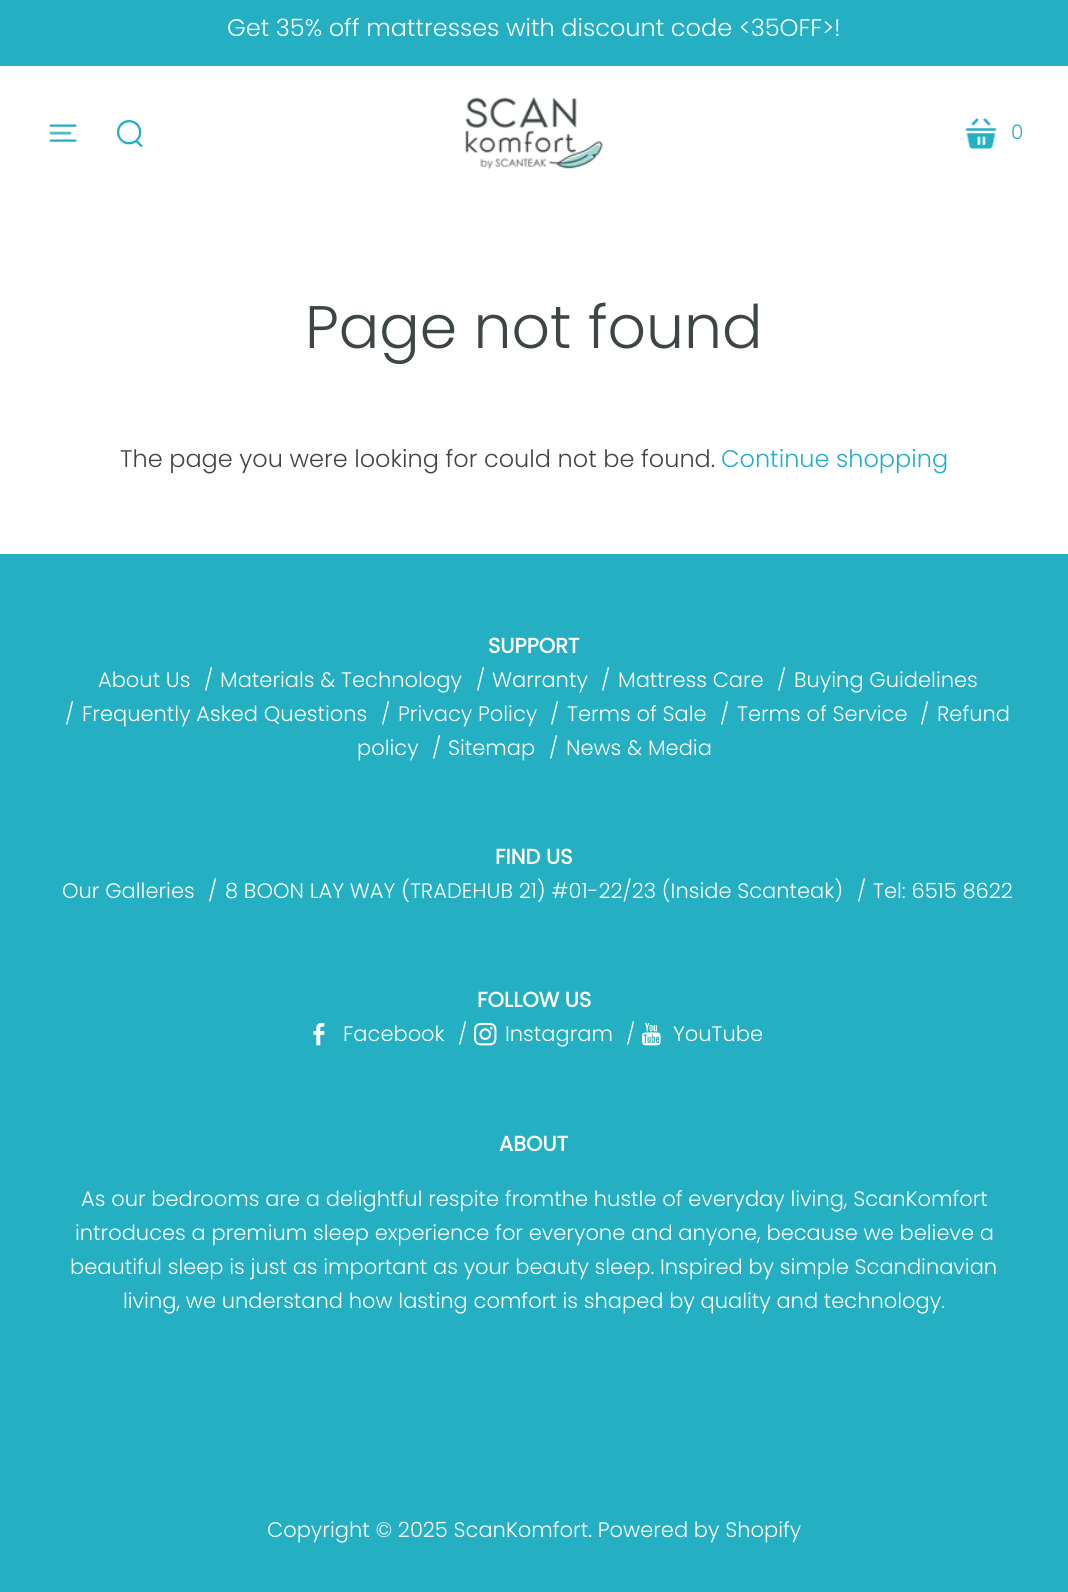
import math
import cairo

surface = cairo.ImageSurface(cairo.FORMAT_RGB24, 1068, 1592)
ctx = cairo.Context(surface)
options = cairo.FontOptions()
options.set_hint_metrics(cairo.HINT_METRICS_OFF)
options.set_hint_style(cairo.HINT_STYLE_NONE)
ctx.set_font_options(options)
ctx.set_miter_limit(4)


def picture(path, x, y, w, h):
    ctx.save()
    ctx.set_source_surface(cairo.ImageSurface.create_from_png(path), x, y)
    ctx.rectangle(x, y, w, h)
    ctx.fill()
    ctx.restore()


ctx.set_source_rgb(1, 1, 1)
ctx.paint()
ctx.set_source_rgb(0.141, 0.686, 0.761)
ctx.rectangle(0, 0, 1068, 66)
ctx.fill()
ctx.select_font_face("Poppins Light")
ctx.set_font_size(24)
ctx.set_source_rgb(1, 1, 1)
ctx.move_to(227, 36)
ctx.show_text("Get 35% off mattresses with discount code <35OFF>!")
picture("img1.png", 49, 124, 28, 18)
picture("img2.png", 49, 131, 23, 4)
picture("img3.png", 117, 120, 26, 27)
picture("img4.png", 465, 97, 138, 73)
picture("img5.png", 965, 118, 32, 31)
ctx.set_font_size(20)
ctx.set_source_rgb(0.141, 0.686, 0.761)
ctx.move_to(1011, 139)
ctx.show_text("0")
ctx.set_font_size(60)
ctx.set_source_rgb(0.243, 0.275, 0.263)
ctx.move_to(305, 348)
ctx.show_text("Page not found")
ctx.set_font_size(24)
ctx.move_to(120, 467)
ctx.show_text("The page you were looking for could not be found.")
ctx.set_source_rgb(0.141, 0.686, 0.761)
ctx.move_to(721, 467)
ctx.show_text("Continue shopping")
ctx.rectangle(0, 554, 1068, 1038)
ctx.fill()
ctx.select_font_face("Poppins", cairo.FONT_SLANT_NORMAL, cairo.FONT_WEIGHT_BOLD)
ctx.set_font_size(21)
ctx.set_source_rgb(1, 1, 1)
ctx.move_to(488, 653)
ctx.show_text("SUPPORT")
ctx.select_font_face("Poppins Light")
ctx.move_to(98, 687)
ctx.show_text("About Us")
ctx.move_to(204, 687)
ctx.show_text("/")
ctx.move_to(220, 687)
ctx.show_text("Materials & Technology")
ctx.move_to(476, 687)
ctx.show_text("/")
ctx.move_to(492, 687)
ctx.show_text("Warranty")
ctx.move_to(601, 687)
ctx.show_text("/")
ctx.move_to(618, 687)
ctx.show_text("Mattress Care")
ctx.move_to(777, 687)
ctx.show_text("/")
ctx.move_to(794, 687)
ctx.show_text("Buying Guidelines")
ctx.move_to(65, 721)
ctx.show_text("/")
ctx.move_to(82, 721)
ctx.show_text("Frequently Asked Questions")
ctx.move_to(381, 721)
ctx.show_text("/")
ctx.move_to(398, 721)
ctx.show_text("Privacy Policy")
ctx.move_to(550, 721)
ctx.show_text("/")
ctx.move_to(567, 721)
ctx.show_text("Terms of Sale")
ctx.move_to(720, 721)
ctx.show_text("/")
ctx.move_to(737, 721)
ctx.show_text("Terms of Service")
ctx.move_to(920, 721)
ctx.show_text("/")
ctx.move_to(937, 721)
ctx.show_text("Refund")
ctx.move_to(357, 755)
ctx.show_text("policy")
ctx.move_to(432, 755)
ctx.show_text("/")
ctx.move_to(448, 755)
ctx.show_text("Sitemap")
ctx.move_to(549, 755)
ctx.show_text("/")
ctx.move_to(566, 755)
ctx.show_text("News & Media")
ctx.select_font_face("Poppins", cairo.FONT_SLANT_NORMAL, cairo.FONT_WEIGHT_BOLD)
ctx.move_to(495, 864)
ctx.show_text("FIND US")
ctx.select_font_face("Poppins Light")
ctx.move_to(62, 898)
ctx.show_text("Our Galleries")
ctx.move_to(208, 898)
ctx.show_text("/")
ctx.move_to(225, 898)
ctx.show_text("8 BOON LAY WAY (TRADEHUB 21) #01-22/23 (Inside Scanteak)")
ctx.move_to(857, 898)
ctx.show_text("/")
ctx.move_to(873, 898)
ctx.show_text("Tel: 6515 8622")
ctx.select_font_face("Poppins", cairo.FONT_SLANT_NORMAL, cairo.FONT_WEIGHT_BOLD)
ctx.move_to(477, 1007)
ctx.show_text("FOLLOW US")
picture("img6.png", 313, 1022, 12, 24)
ctx.select_font_face("Poppins Light")
ctx.move_to(343, 1041)
ctx.show_text("Facebook")
ctx.move_to(458, 1041)
ctx.show_text("/")
picture("img7.png", 474, 1022, 23, 24)
ctx.move_to(505, 1041)
ctx.show_text("Instagram")
ctx.move_to(626, 1041)
ctx.show_text("/")
picture("img8.png", 642, 1022, 19, 24)
ctx.move_to(673, 1041)
ctx.show_text("YouTube")
ctx.select_font_face("Poppins", cairo.FONT_SLANT_NORMAL, cairo.FONT_WEIGHT_BOLD)
ctx.move_to(499, 1151)
ctx.show_text("ABOUT")
ctx.select_font_face("Poppins Light")
ctx.move_to(81, 1206)
ctx.show_text("As our bedrooms are a delightful respite fromthe hustle of everyday living, ScanKomfort")
ctx.move_to(75, 1240)
ctx.show_text("introduces a premium sleep experience for everyone and anyone, because we believe a")
ctx.move_to(70, 1274)
ctx.show_text("beautiful sleep is just as important as your beauty sleep. Inspired by simple Scandinavian")
ctx.move_to(123, 1308)
ctx.show_text("living, we understand how lasting comfort is shaped by quality and technology.")
ctx.move_to(267, 1537)
ctx.show_text("Copyright © 2025 ScanKomfort. Powered by Shopify")
surface.write_to_png("page.png")
